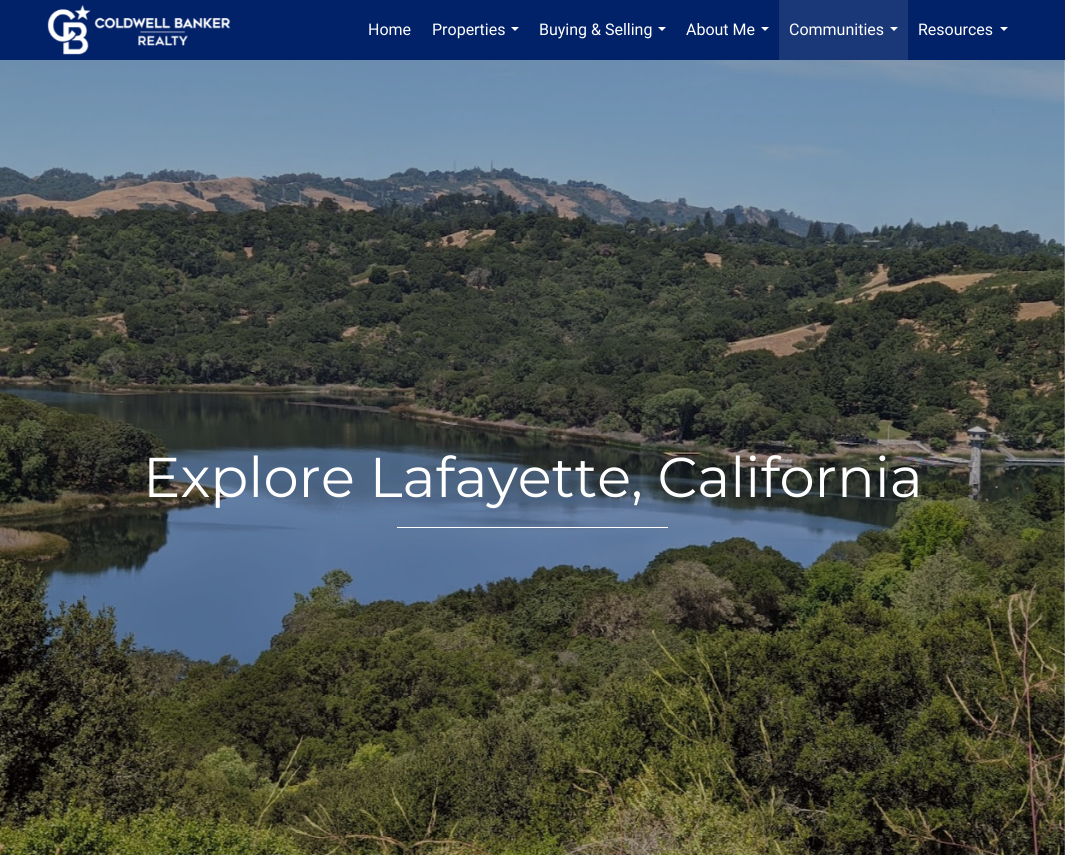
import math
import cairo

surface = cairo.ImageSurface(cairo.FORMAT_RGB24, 1065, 855)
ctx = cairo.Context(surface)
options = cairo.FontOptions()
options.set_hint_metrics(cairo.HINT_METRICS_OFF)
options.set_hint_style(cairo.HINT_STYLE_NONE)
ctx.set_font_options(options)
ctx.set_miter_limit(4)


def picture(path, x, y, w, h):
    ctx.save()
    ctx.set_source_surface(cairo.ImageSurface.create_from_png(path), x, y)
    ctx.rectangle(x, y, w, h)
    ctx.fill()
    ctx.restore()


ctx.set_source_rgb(1, 1, 1)
ctx.paint()
ctx.set_source_rgb(0.004, 0.129, 0.412)
ctx.rectangle(0, 0, 1065, 60)
ctx.fill()
picture("img1.png", 47, 5, 184, 50)
ctx.select_font_face("Roboto")
ctx.set_font_size(16)
ctx.set_source_rgb(1, 1, 1)
ctx.move_to(368, 35)
ctx.show_text("Home")
ctx.move_to(432, 35)
ctx.show_text("Properties")
ctx.new_path()
ctx.move_to(511, 27)
ctx.line_to(519, 27)
ctx.line_to(515, 31)
ctx.close_path()
ctx.fill()
ctx.move_to(539, 35)
ctx.show_text("Buying & Selling")
ctx.new_path()
ctx.move_to(658, 27)
ctx.line_to(666, 27)
ctx.line_to(662, 31)
ctx.close_path()
ctx.fill()
ctx.move_to(686, 35)
ctx.show_text("About Me")
ctx.new_path()
ctx.move_to(761, 27)
ctx.line_to(769, 27)
ctx.line_to(765, 31)
ctx.close_path()
ctx.fill()
ctx.set_source_rgb(0.102, 0.216, 0.471)
ctx.rectangle(779, 0, 129, 60)
ctx.fill()
ctx.set_source_rgb(1, 1, 1)
ctx.move_to(789, 35)
ctx.show_text("Communities")
ctx.new_path()
ctx.move_to(890, 27)
ctx.line_to(898, 27)
ctx.line_to(894, 31)
ctx.close_path()
ctx.fill()
ctx.move_to(918, 35)
ctx.show_text("Resources")
ctx.new_path()
ctx.move_to(1000, 27)
ctx.line_to(1008, 27)
ctx.line_to(1004, 31)
ctx.close_path()
ctx.fill()
picture("img2.png", 0, 60, 1065, 795)
ctx.select_font_face("Montserrat Thin")
ctx.set_font_size(56)
ctx.move_to(143, 497)
ctx.show_text("Explore Lafayette, California")
ctx.rectangle(397, 527, 271, 1)
ctx.fill()
surface.write_to_png("page.png")
